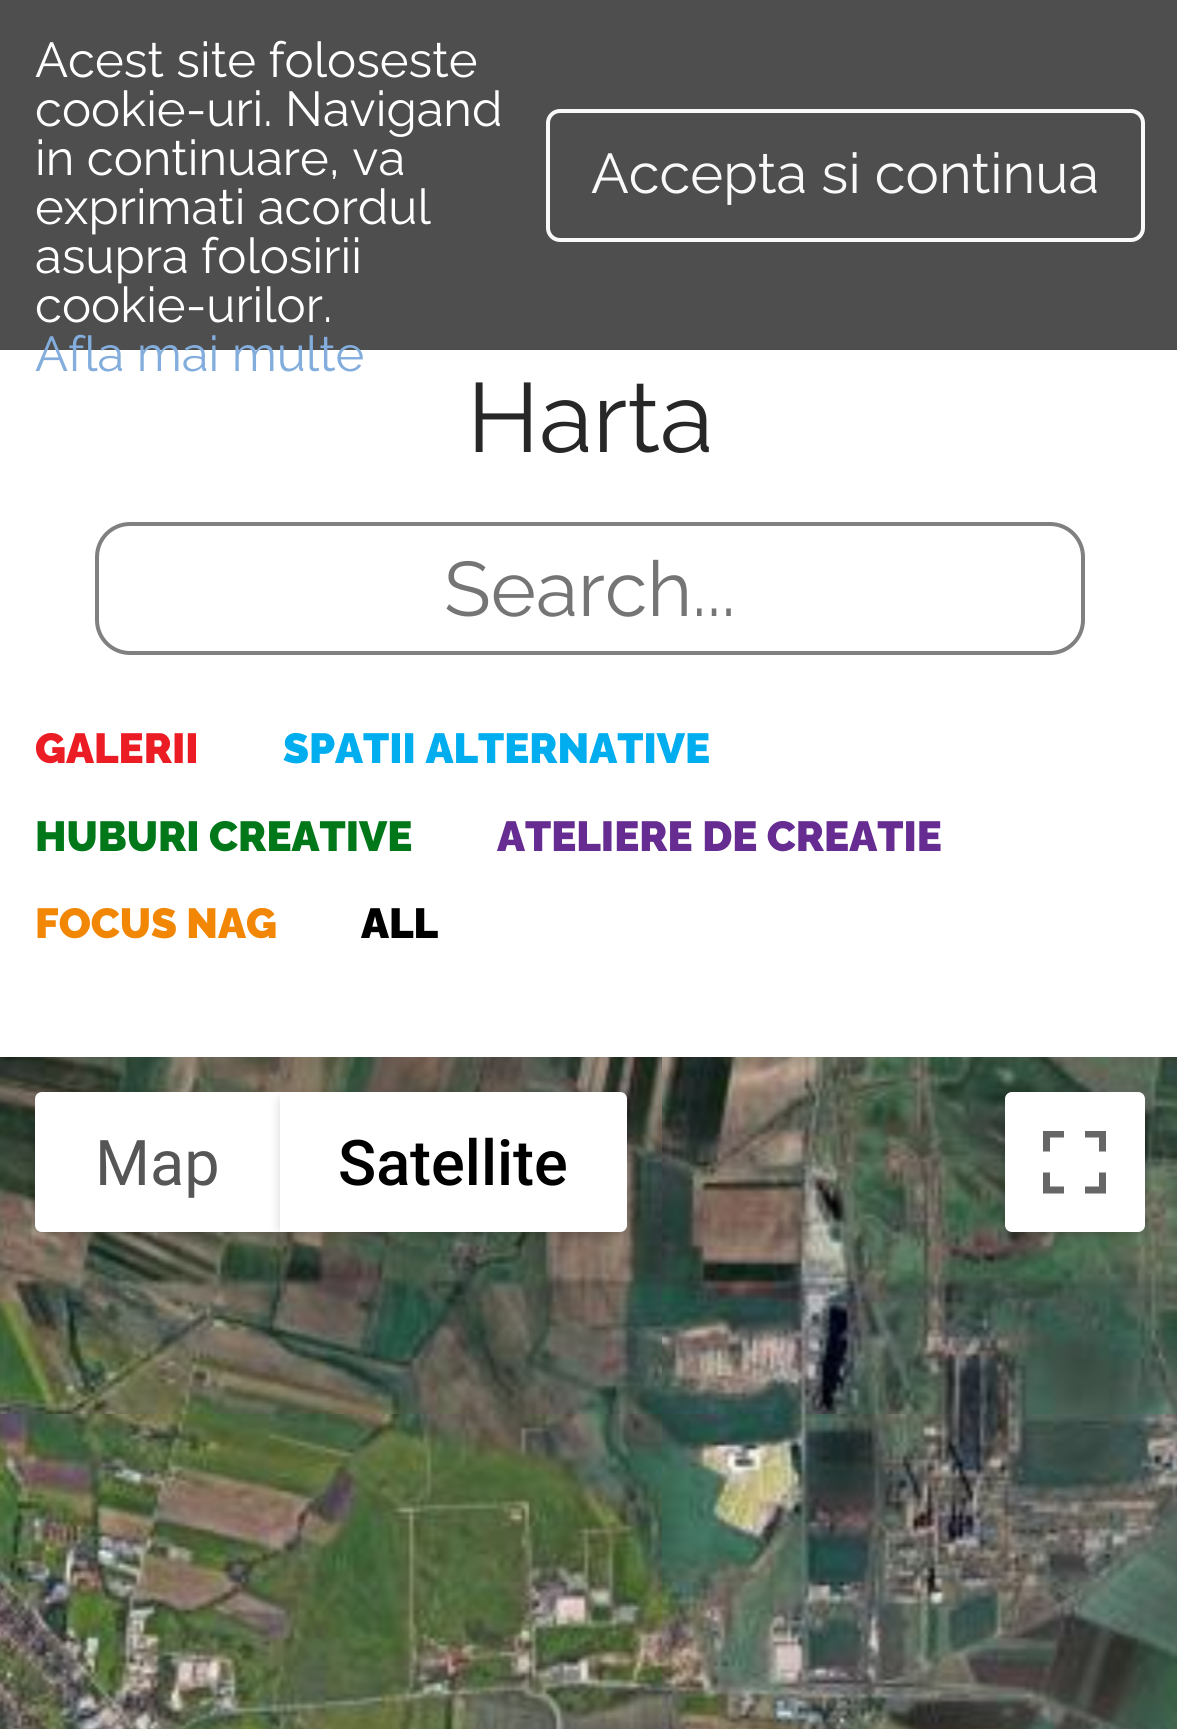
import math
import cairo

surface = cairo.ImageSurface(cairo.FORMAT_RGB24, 1177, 1729)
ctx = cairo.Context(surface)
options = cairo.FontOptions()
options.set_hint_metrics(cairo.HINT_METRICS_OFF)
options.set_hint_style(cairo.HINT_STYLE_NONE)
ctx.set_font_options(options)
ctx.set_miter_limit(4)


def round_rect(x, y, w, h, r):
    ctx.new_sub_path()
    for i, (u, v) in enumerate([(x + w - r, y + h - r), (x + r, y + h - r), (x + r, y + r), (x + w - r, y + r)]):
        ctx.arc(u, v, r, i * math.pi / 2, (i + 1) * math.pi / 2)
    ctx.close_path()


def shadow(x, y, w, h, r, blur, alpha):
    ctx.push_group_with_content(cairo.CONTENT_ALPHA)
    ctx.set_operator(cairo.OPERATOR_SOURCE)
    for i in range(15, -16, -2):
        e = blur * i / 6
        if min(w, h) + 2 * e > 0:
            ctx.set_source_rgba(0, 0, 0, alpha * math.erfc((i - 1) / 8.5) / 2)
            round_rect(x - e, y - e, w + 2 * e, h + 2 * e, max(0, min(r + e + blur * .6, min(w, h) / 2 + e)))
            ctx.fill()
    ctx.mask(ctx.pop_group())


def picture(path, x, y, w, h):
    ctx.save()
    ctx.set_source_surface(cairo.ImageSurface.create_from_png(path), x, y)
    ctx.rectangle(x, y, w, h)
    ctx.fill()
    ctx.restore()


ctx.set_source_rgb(1, 1, 1)
ctx.paint()
ctx.set_source_rgb(0.306, 0.306, 0.306)
ctx.rectangle(0, 0, 1177, 350)
ctx.fill()
ctx.select_font_face("Raleway")
ctx.set_font_size(49)
ctx.set_source_rgb(1, 1, 1)
ctx.move_to(35, 77)
ctx.show_text("Acest site foloseste")
ctx.move_to(35, 126)
ctx.show_text("cookie-uri. Navigand")
ctx.move_to(35, 175)
ctx.show_text("in continuare, va")
ctx.move_to(35, 224)
ctx.show_text("exprimati acordul")
ctx.move_to(35, 273)
ctx.show_text("asupra folosirii")
ctx.move_to(35, 322)
ctx.show_text("cookie-urilor.")
ctx.set_source_rgb(0.51, 0.678, 0.863)
ctx.move_to(35, 371)
ctx.show_text("Afla mai multe")
round_rect(548, 111, 595, 129, 12)
ctx.set_source_rgb(0.973, 0.976, 0.98)
ctx.set_line_width(4)
ctx.stroke()
ctx.set_font_size(56)
ctx.move_to(591, 193)
ctx.show_text("Accepta si continua")
ctx.set_font_size(98)
ctx.set_source_rgb(0.153, 0.153, 0.153)
ctx.move_to(467, 452)
ctx.show_text("Harta")
round_rect(97, 524, 986, 129, 33)
ctx.set_source_rgb(0.502, 0.502, 0.502)
ctx.stroke()
ctx.set_font_size(77)
ctx.set_source_rgb(0.459, 0.459, 0.459)
ctx.move_to(444, 616)
ctx.show_text("Search...")
ctx.select_font_face("Raleway Black")
ctx.set_font_size(42)
ctx.set_source_rgb(0.925, 0.11, 0.141)
ctx.move_to(35, 763)
ctx.show_text("GALERII")
ctx.set_source_rgb(0, 0.678, 0.933)
ctx.move_to(283, 763)
ctx.show_text("SPATII ALTERNATIVE")
ctx.set_source_rgb(0, 0.467, 0.094)
ctx.move_to(35, 851)
ctx.show_text("HUBURI CREATIVE")
ctx.set_source_rgb(0.4, 0.173, 0.569)
ctx.move_to(497, 851)
ctx.show_text("ATELIERE DE CREATIE")
ctx.set_source_rgb(0.945, 0.529, 0.02)
ctx.move_to(35, 938)
ctx.show_text("FOCUS NAG")
ctx.set_source_rgb(0, 0, 0)
ctx.move_to(361, 938)
ctx.show_text("ALL")
picture("img1.png", 0, 1057, 662, 357)
picture("img2.png", 662, 1057, 515, 357)
picture("img3.png", 0, 1414, 662, 315)
picture("img4.png", 662, 1414, 515, 315)
ctx.set_source_rgb(0, 0, 0)
shadow(39, 1099, 238, 133, 4, 7, 0.3)
ctx.set_source_rgb(1, 1, 1)
ctx.new_path()
ctx.move_to(42, 1092)
ctx.line_to(280, 1092)
ctx.line_to(280, 1232)
ctx.line_to(42, 1232)
ctx.curve_to(38, 1232, 35, 1229, 35, 1225)
ctx.line_to(35, 1099)
ctx.curve_to(35, 1095, 38, 1092, 42, 1092)
ctx.close_path()
ctx.fill()
ctx.select_font_face("Roboto")
ctx.set_font_size(63)
ctx.set_source_rgb(0.337, 0.337, 0.337)
ctx.move_to(95, 1185)
ctx.show_text("Map")
ctx.set_source_rgb(0, 0, 0)
shadow(284, 1099, 339, 133, 4, 7, 0.3)
ctx.set_source_rgb(1, 1, 1)
ctx.new_path()
ctx.move_to(280, 1092)
ctx.line_to(620, 1092)
ctx.curve_to(624, 1092, 627, 1095, 627, 1099)
ctx.line_to(627, 1225)
ctx.curve_to(627, 1229, 624, 1232, 620, 1232)
ctx.line_to(280, 1232)
ctx.close_path()
ctx.fill()
ctx.select_font_face("Roboto Medium")
ctx.set_source_rgb(0, 0, 0)
ctx.move_to(338, 1185)
ctx.show_text("Satellite")
ctx.set_source_rgb(0, 0, 0)
shadow(1008, 1099, 133, 133, 4, 7, 0.3)
ctx.set_source_rgb(1, 1, 1)
round_rect(1005, 1092, 140, 140, 7)
ctx.fill()
picture("img5.png", 1043, 1131, 63, 63)
surface.write_to_png("page.png")
